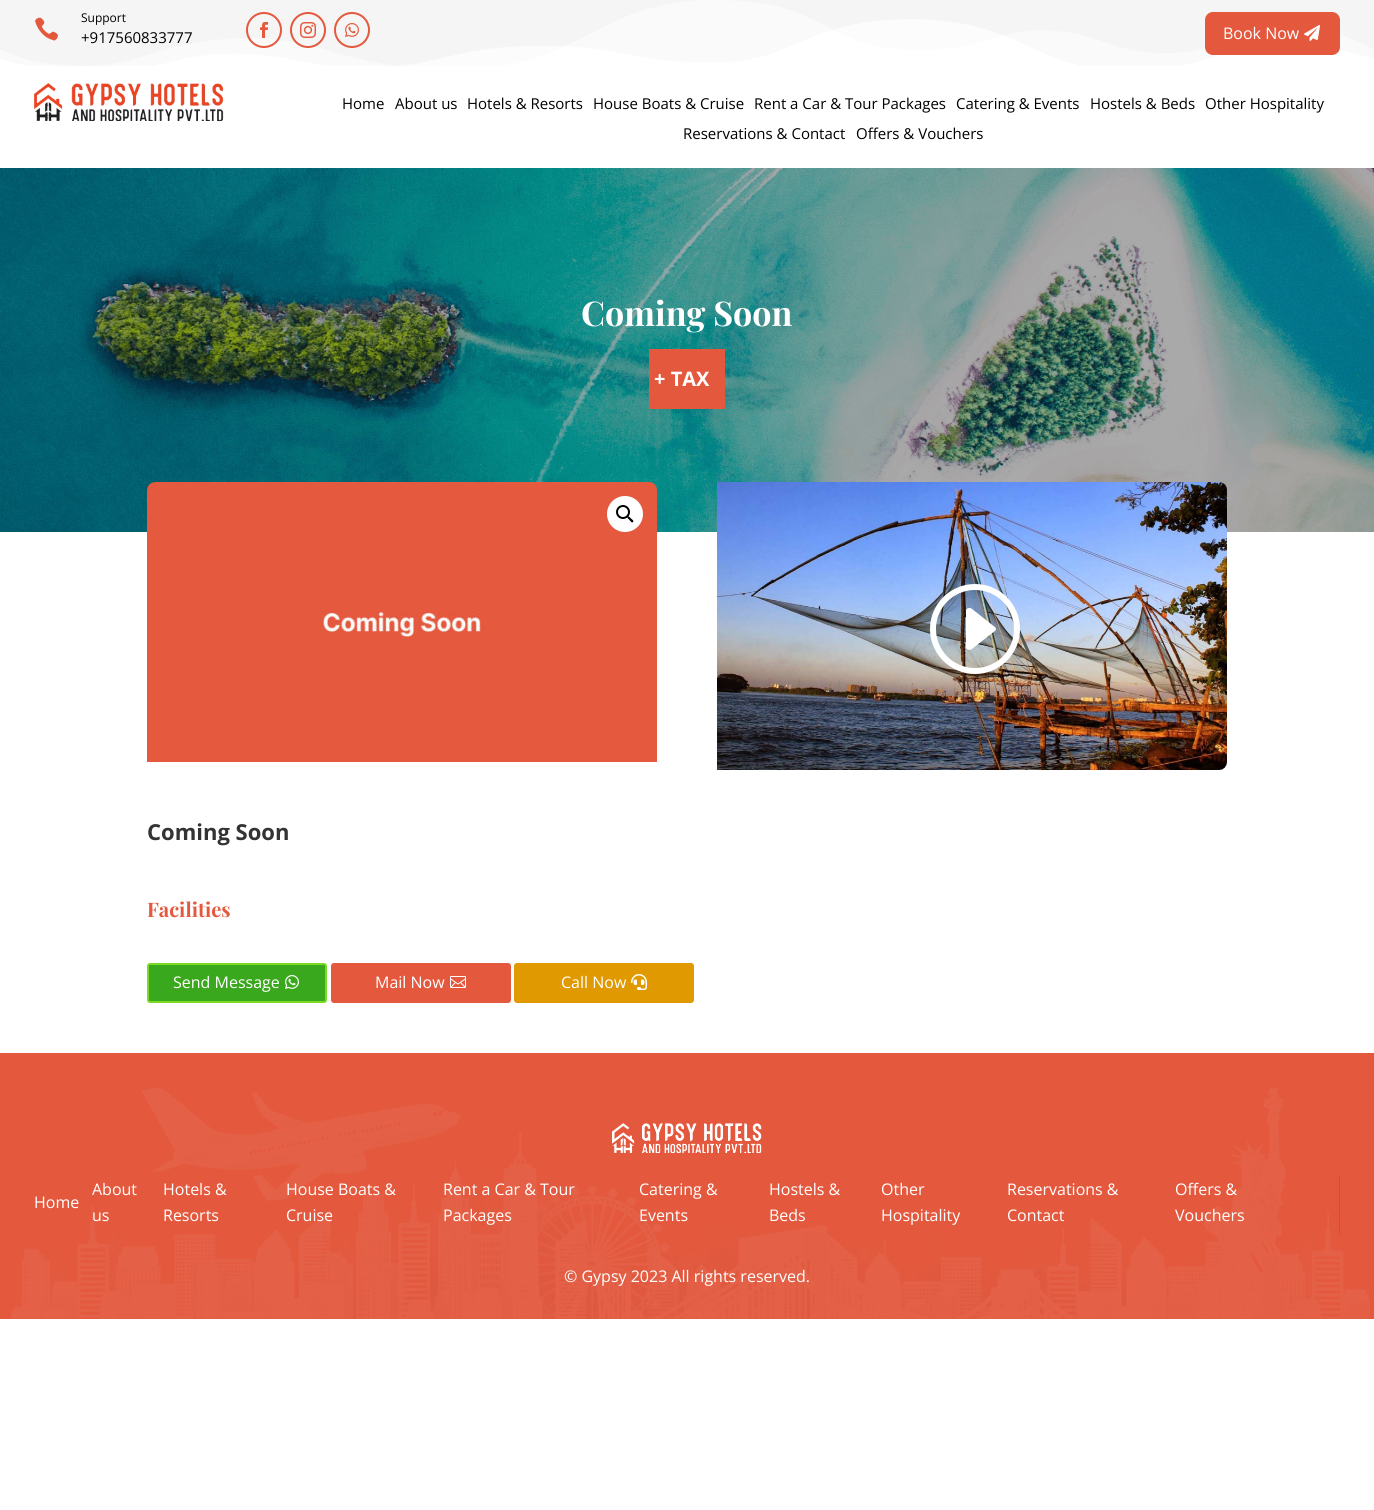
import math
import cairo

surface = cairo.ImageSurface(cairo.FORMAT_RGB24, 1374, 1510)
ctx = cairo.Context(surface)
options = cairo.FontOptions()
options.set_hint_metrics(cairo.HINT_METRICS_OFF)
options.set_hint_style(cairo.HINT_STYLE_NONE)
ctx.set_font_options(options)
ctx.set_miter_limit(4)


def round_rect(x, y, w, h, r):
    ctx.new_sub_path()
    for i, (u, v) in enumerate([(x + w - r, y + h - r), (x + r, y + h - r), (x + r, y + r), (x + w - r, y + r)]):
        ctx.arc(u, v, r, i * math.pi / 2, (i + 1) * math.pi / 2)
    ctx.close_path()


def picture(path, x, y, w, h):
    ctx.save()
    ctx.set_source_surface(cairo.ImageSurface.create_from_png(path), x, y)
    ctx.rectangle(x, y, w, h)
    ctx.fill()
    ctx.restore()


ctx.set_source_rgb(1, 1, 1)
ctx.paint()
picture("img1.png", 0, 0, 1374, 66)
picture("img2.png", 35, 17, 23, 24)
ctx.select_font_face("Open Sans")
ctx.set_font_size(12)
ctx.set_source_rgb(0, 0, 0)
ctx.move_to(81, 22)
ctx.show_text("Support")
ctx.set_font_size(15)
ctx.move_to(81, 43)
ctx.show_text("+917560833777")
ctx.new_path()
ctx.arc(264, 30, 17, 0, 2 * math.pi)
ctx.set_source_rgb(0.894, 0.349, 0.243)
ctx.stroke()
picture("img3.png", 260, 22, 8, 16)
ctx.arc(308, 30, 17, 0, 2 * math.pi)
ctx.stroke()
picture("img4.png", 300, 22, 16, 16)
ctx.arc(352, 30, 17, 0, 2 * math.pi)
ctx.stroke()
picture("img5.png", 345, 23, 14, 14)
round_rect(1205, 12, 135, 43, 8)
ctx.fill()
ctx.set_font_size(16)
ctx.set_source_rgb(1, 1, 1)
ctx.move_to(1223, 39)
ctx.show_text("Book Now")
picture("img6.png", 1304, 25, 16, 16)
picture("img7.png", 34, 83, 190, 38)
ctx.set_font_size(15)
ctx.set_source_rgb(0, 0, 0)
ctx.move_to(342, 109)
ctx.show_text("Home")
ctx.move_to(395, 109)
ctx.show_text("About us")
ctx.move_to(467, 109)
ctx.show_text("Hotels & Resorts")
ctx.move_to(593, 109)
ctx.show_text("House Boats & Cruise")
ctx.move_to(754, 109)
ctx.show_text("Rent a Car & Tour Packages")
ctx.move_to(956, 109)
ctx.show_text("Catering & Events")
ctx.move_to(1090, 109)
ctx.show_text("Hostels & Beds")
ctx.move_to(1205, 109)
ctx.show_text("Other Hospitality")
ctx.move_to(683, 139)
ctx.show_text("Reservations & Contact")
ctx.move_to(856, 139)
ctx.show_text("Offers & Vouchers")
picture("img8.png", 0, 168, 1374, 364)
ctx.select_font_face("Playfair Display", cairo.FONT_SLANT_NORMAL, cairo.FONT_WEIGHT_BOLD)
ctx.set_font_size(34)
ctx.set_source_rgb(1, 1, 1)
ctx.move_to(581, 326)
ctx.show_text("Coming Soon")
ctx.set_source_rgb(0.894, 0.349, 0.243)
ctx.rectangle(649, 349, 76, 60)
ctx.fill()
ctx.select_font_face("Open Sans", cairo.FONT_SLANT_NORMAL, cairo.FONT_WEIGHT_BOLD)
ctx.set_font_size(20)
ctx.set_source_rgb(1, 1, 1)
ctx.move_to(654, 386)
ctx.show_text("+ TAX")
picture("img9.png", 147, 482, 510, 280)
ctx.arc(625, 514, 18, 0, 2 * math.pi)
ctx.fill()
ctx.arc(623, 512, 6, 0, 2 * math.pi)
ctx.set_source_rgb(0, 0, 0)
ctx.stroke()
ctx.new_path()
ctx.move_to(627.5, 516.5)
ctx.curve_to(628.5, 515.5, 630.5, 518, 631, 518.5)
ctx.curve_to(631.5, 519, 634.5, 521, 633, 522)
ctx.curve_to(632, 523.5, 630, 520.5, 629.5, 520)
ctx.curve_to(629, 519.5, 626.5, 517.5, 627.5, 516.5)
ctx.close_path()
ctx.fill()
picture("img10.png", 717, 482, 510, 288)
picture("img11.png", 930, 584, 90, 90)
ctx.set_font_size(22)
ctx.set_source_rgb(0.2, 0.2, 0.2)
ctx.move_to(147, 840)
ctx.show_text("Coming Soon")
ctx.select_font_face("Playfair Display", cairo.FONT_SLANT_NORMAL, cairo.FONT_WEIGHT_BOLD)
ctx.set_font_size(20)
ctx.set_source_rgb(0.894, 0.349, 0.243)
ctx.move_to(147, 917)
ctx.show_text("Facilities")
ctx.set_source_rgb(0.227, 0.659, 0.11)
round_rect(148, 964, 178, 38, 2)
ctx.fill_preserve()
ctx.set_source_rgb(0.486, 0.855, 0.141)
ctx.stroke()
ctx.select_font_face("Open Sans")
ctx.set_font_size(16)
ctx.set_source_rgb(1, 1, 1)
ctx.move_to(173, 988)
ctx.show_text("Send Message")
picture("img12.png", 285, 975, 14, 14)
ctx.set_source_rgb(0.894, 0.349, 0.243)
round_rect(332, 964, 178, 38, 2)
ctx.fill_preserve()
ctx.stroke()
ctx.set_source_rgb(1, 1, 1)
ctx.move_to(375, 988)
ctx.show_text("Mail Now")
picture("img13.png", 450, 976, 16, 12)
ctx.set_source_rgb(0.878, 0.6, 0)
round_rect(515, 964, 178, 38, 2)
ctx.fill_preserve()
ctx.stroke()
ctx.set_source_rgb(1, 1, 1)
ctx.move_to(561, 988)
ctx.show_text("Call Now")
picture("img14.png", 631, 974, 16, 16)
ctx.set_source_rgb(0.894, 0.349, 0.243)
ctx.rectangle(0, 1053, 1374, 266)
ctx.fill()
picture("img15.png", 11, 1087, 1359, 232)
picture("img16.png", 612, 1123, 150, 30)
ctx.set_source_rgb(0.804, 0.314, 0.22)
ctx.rectangle(1339, 1176, 1, 59)
ctx.fill()
ctx.set_source_rgb(1, 1, 1)
ctx.move_to(34, 1208)
ctx.show_text("Home")
ctx.move_to(92, 1195)
ctx.show_text("About")
ctx.move_to(92, 1221)
ctx.show_text("us")
ctx.move_to(163, 1195)
ctx.show_text("Hotels &")
ctx.move_to(163, 1221)
ctx.show_text("Resorts")
ctx.move_to(286, 1195)
ctx.show_text("House Boats &")
ctx.move_to(286, 1221)
ctx.show_text("Cruise")
ctx.move_to(443, 1195)
ctx.show_text("Rent a Car & Tour")
ctx.move_to(443, 1221)
ctx.show_text("Packages")
ctx.move_to(639, 1195)
ctx.show_text("Catering &")
ctx.move_to(639, 1221)
ctx.show_text("Events")
ctx.move_to(769, 1195)
ctx.show_text("Hostels &")
ctx.move_to(769, 1221)
ctx.show_text("Beds")
ctx.move_to(881, 1195)
ctx.show_text("Other")
ctx.move_to(881, 1221)
ctx.show_text("Hospitality")
ctx.move_to(1007, 1195)
ctx.show_text("Reservations &")
ctx.move_to(1007, 1221)
ctx.show_text("Contact")
ctx.move_to(1175, 1195)
ctx.show_text("Offers &")
ctx.move_to(1175, 1221)
ctx.show_text("Vouchers")
ctx.move_to(564, 1282)
ctx.show_text("© Gypsy 2023 All rights reserved.")
surface.write_to_png("page.png")
